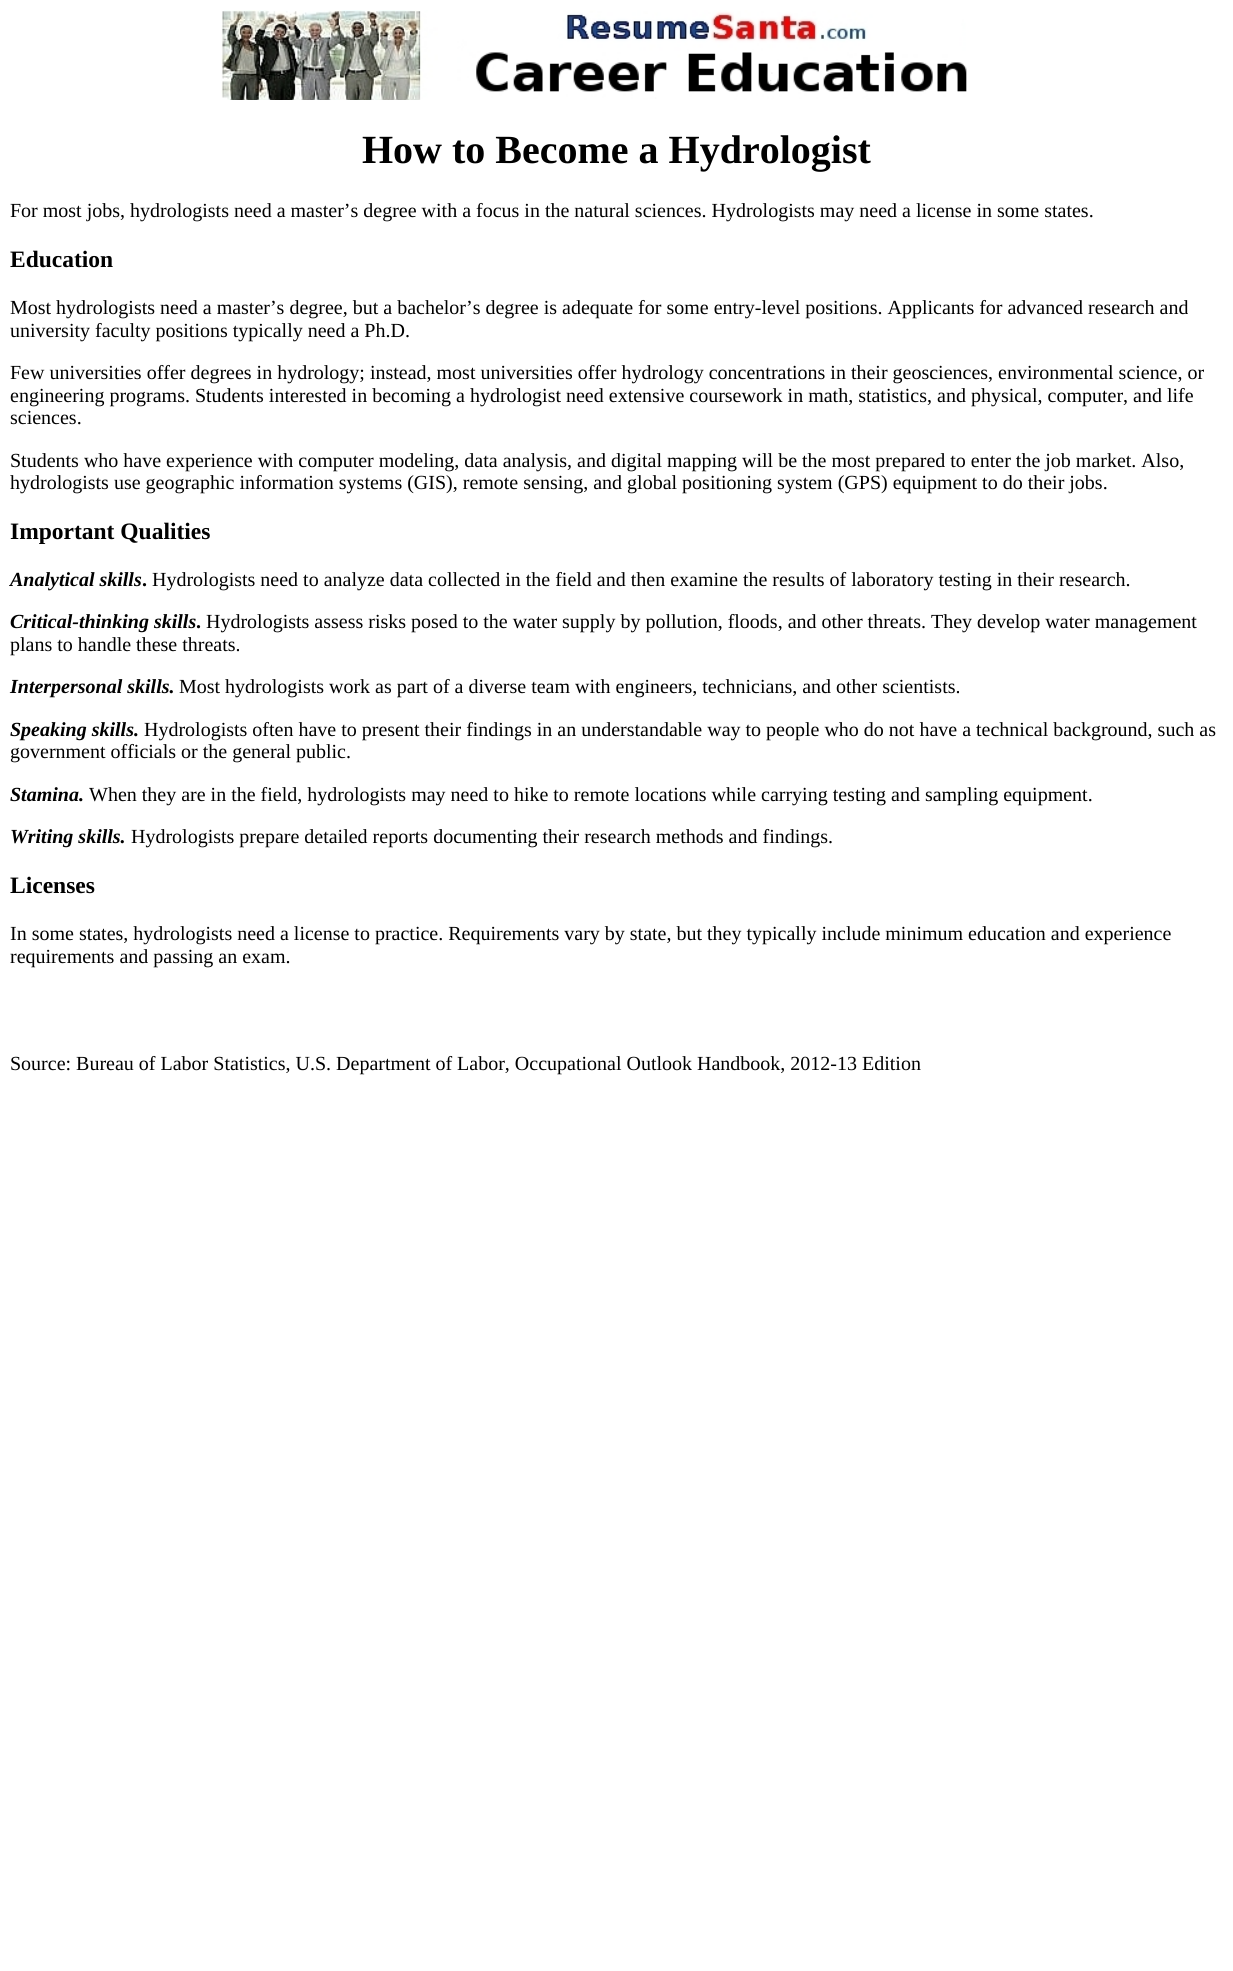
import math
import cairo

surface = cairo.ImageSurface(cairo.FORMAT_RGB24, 1233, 1971)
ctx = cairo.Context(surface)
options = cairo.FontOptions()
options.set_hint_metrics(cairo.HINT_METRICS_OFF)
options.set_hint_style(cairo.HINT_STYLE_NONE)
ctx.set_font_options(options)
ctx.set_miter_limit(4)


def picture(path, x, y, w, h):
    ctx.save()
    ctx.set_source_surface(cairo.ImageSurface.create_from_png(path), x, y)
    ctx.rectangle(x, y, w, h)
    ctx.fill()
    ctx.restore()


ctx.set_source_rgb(1, 1, 1)
ctx.paint()
picture("img1.png", 221, 10, 746, 90)
ctx.select_font_face("Liberation Serif", cairo.FONT_SLANT_NORMAL, cairo.FONT_WEIGHT_BOLD)
ctx.set_font_size(40)
ctx.set_source_rgb(0, 0, 0)
ctx.move_to(362, 163)
ctx.show_text("How to Become a Hydrologist")
ctx.select_font_face("Liberation Serif")
ctx.set_font_size(20)
ctx.move_to(10, 217)
ctx.show_text("For most jobs, hydrologists need a master’s degree with a focus in the natural sciences. Hydrologists may need a license in some states.")
ctx.select_font_face("Liberation Serif", cairo.FONT_SLANT_NORMAL, cairo.FONT_WEIGHT_BOLD)
ctx.set_font_size(23.5)
ctx.move_to(10, 267)
ctx.show_text("Education")
ctx.select_font_face("Liberation Serif")
ctx.set_font_size(20)
ctx.move_to(10, 314)
ctx.show_text("Most hydrologists need a master’s degree, but a bachelor’s degree is adequate for some entry-level positions. Applicants for advanced research and")
ctx.move_to(10, 337)
ctx.show_text("university faculty positions typically need a Ph.D.")
ctx.move_to(10, 379)
ctx.show_text("Few universities offer degrees in hydrology; instead, most universities offer hydrology concentrations in their geosciences, environmental science, or")
ctx.move_to(10, 402)
ctx.show_text("engineering programs. Students interested in becoming a hydrologist need extensive coursework in math, statistics, and physical, computer, and life")
ctx.move_to(10, 424)
ctx.show_text("sciences.")
ctx.move_to(10, 467)
ctx.show_text("Students who have experience with computer modeling, data analysis, and digital mapping will be the most prepared to enter the job market. Also,")
ctx.move_to(10, 489)
ctx.show_text("hydrologists use geographic information systems (GIS), remote sensing, and global positioning system (GPS) equipment to do their jobs.")
ctx.select_font_face("Liberation Serif", cairo.FONT_SLANT_NORMAL, cairo.FONT_WEIGHT_BOLD)
ctx.set_font_size(23.5)
ctx.move_to(10, 539)
ctx.show_text("Important Qualities")
ctx.select_font_face("Liberation Serif", cairo.FONT_SLANT_ITALIC, cairo.FONT_WEIGHT_BOLD)
ctx.set_font_size(20)
ctx.move_to(10, 586)
ctx.show_text("Analytical skills")
ctx.select_font_face("Liberation Serif", cairo.FONT_SLANT_NORMAL, cairo.FONT_WEIGHT_BOLD)
ctx.move_to(142, 586)
ctx.show_text(".")
ctx.select_font_face("Liberation Serif")
ctx.move_to(152, 586)
ctx.show_text("Hydrologists need to analyze data collected in the field and then examine the results of laboratory testing in their research.")
ctx.select_font_face("Liberation Serif", cairo.FONT_SLANT_ITALIC, cairo.FONT_WEIGHT_BOLD)
ctx.move_to(10, 628)
ctx.show_text("Critical-thinking skills")
ctx.select_font_face("Liberation Serif", cairo.FONT_SLANT_NORMAL, cairo.FONT_WEIGHT_BOLD)
ctx.move_to(196, 628)
ctx.show_text(".")
ctx.select_font_face("Liberation Serif")
ctx.move_to(206, 628)
ctx.show_text("Hydrologists assess risks posed to the water supply by pollution, floods, and other threats. They develop water management")
ctx.move_to(10, 651)
ctx.show_text("plans to handle these threats.")
ctx.select_font_face("Liberation Serif", cairo.FONT_SLANT_ITALIC, cairo.FONT_WEIGHT_BOLD)
ctx.move_to(10, 693)
ctx.show_text("Interpersonal skills.")
ctx.select_font_face("Liberation Serif")
ctx.move_to(179, 693)
ctx.show_text("Most hydrologists work as part of a diverse team with engineers, technicians, and other scientists.")
ctx.select_font_face("Liberation Serif", cairo.FONT_SLANT_ITALIC, cairo.FONT_WEIGHT_BOLD)
ctx.move_to(10, 736)
ctx.show_text("Speaking skills.")
ctx.select_font_face("Liberation Serif")
ctx.move_to(144, 736)
ctx.show_text("Hydrologists often have to present their findings in an understandable way to people who do not have a technical background, such as")
ctx.move_to(10, 758)
ctx.show_text("government officials or the general public.")
ctx.select_font_face("Liberation Serif", cairo.FONT_SLANT_ITALIC, cairo.FONT_WEIGHT_BOLD)
ctx.move_to(10, 801)
ctx.show_text("Stamina.")
ctx.select_font_face("Liberation Serif")
ctx.move_to(89, 801)
ctx.show_text("When they are in the field, hydrologists may need to hike to remote locations while carrying testing and sampling equipment.")
ctx.select_font_face("Liberation Serif", cairo.FONT_SLANT_ITALIC, cairo.FONT_WEIGHT_BOLD)
ctx.move_to(10, 843)
ctx.show_text("Writing skills.")
ctx.select_font_face("Liberation Serif")
ctx.move_to(131, 843)
ctx.show_text("Hydrologists prepare detailed reports documenting their research methods and findings.")
ctx.select_font_face("Liberation Serif", cairo.FONT_SLANT_NORMAL, cairo.FONT_WEIGHT_BOLD)
ctx.set_font_size(23.5)
ctx.move_to(10, 893)
ctx.show_text("Licenses")
ctx.select_font_face("Liberation Serif")
ctx.set_font_size(20)
ctx.move_to(10, 940)
ctx.show_text("In some states, hydrologists need a license to practice. Requirements vary by state, but they typically include minimum education and experience")
ctx.move_to(10, 963)
ctx.show_text("requirements and passing an exam.")
ctx.move_to(10, 1070)
ctx.show_text("Source: Bureau of Labor Statistics, U.S. Department of Labor, Occupational Outlook Handbook, 2012-13 Edition")
surface.write_to_png("page.png")
